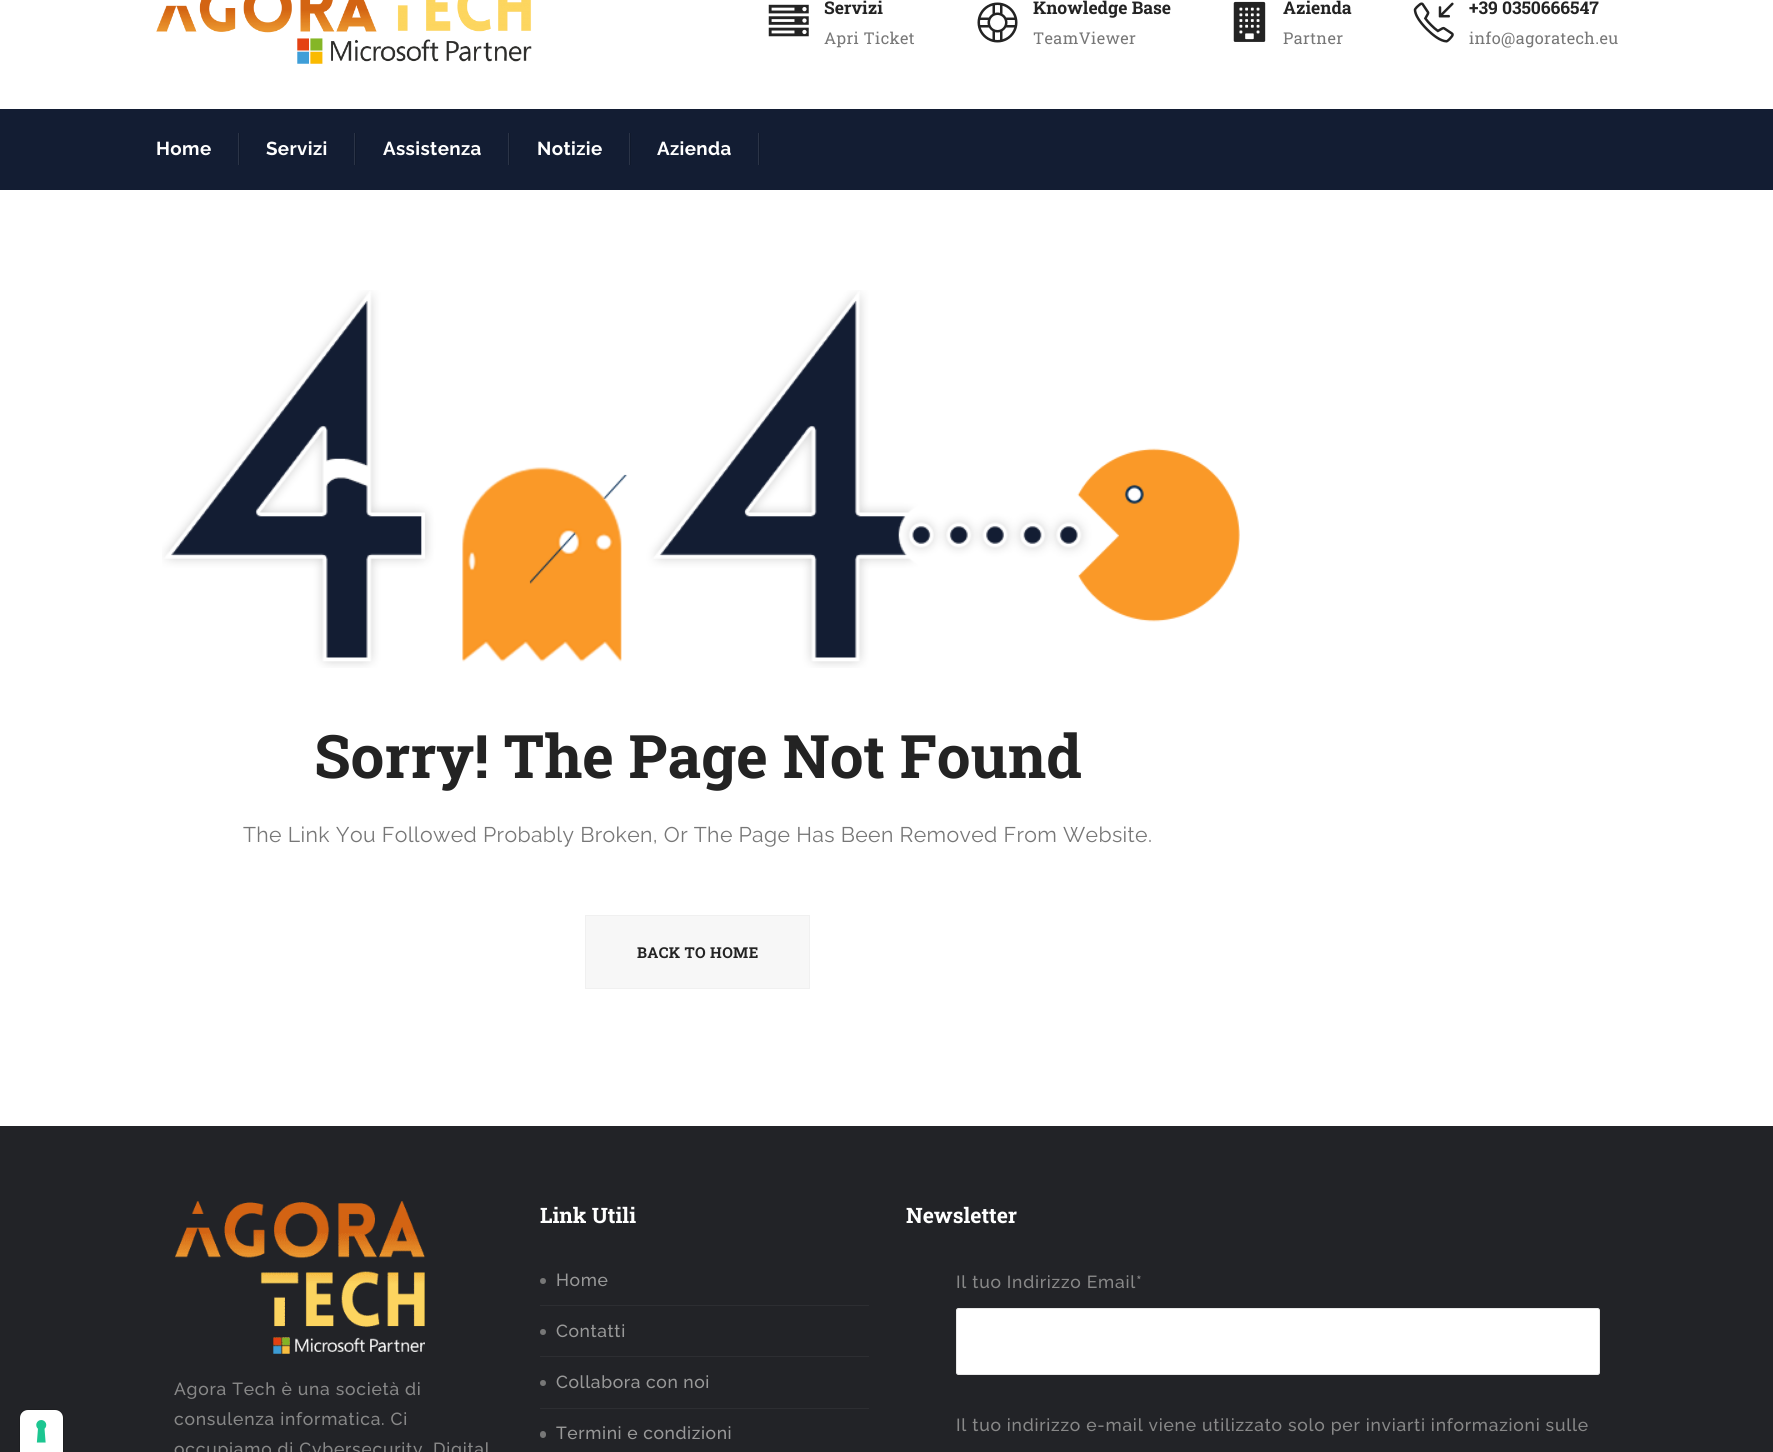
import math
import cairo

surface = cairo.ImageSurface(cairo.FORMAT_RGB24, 1773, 1452)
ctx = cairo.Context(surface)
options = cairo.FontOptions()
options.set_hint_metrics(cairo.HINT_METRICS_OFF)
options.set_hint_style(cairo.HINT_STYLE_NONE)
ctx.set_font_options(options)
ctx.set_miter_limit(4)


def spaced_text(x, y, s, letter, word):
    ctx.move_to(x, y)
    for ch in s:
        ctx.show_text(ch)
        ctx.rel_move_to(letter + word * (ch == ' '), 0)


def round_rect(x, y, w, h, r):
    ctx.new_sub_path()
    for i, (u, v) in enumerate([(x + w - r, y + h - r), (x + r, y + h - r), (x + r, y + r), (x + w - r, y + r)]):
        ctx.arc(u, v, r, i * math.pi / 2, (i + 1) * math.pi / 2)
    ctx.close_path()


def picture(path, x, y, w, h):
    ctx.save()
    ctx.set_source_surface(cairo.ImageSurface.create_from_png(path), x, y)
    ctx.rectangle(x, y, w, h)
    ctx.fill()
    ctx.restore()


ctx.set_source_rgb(1, 1, 1)
ctx.paint()
ctx.set_source_rgb(0.133, 0.137, 0.153)
ctx.rectangle(0, 1126, 1773, 326)
ctx.fill()
ctx.new_path()
ctx.move_to(28, 1409.5)
ctx.line_to(55, 1409.5)
ctx.curve_to(59.5, 1409.5, 63.5, 1413.5, 63.5, 1418)
ctx.line_to(63.5, 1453.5)
ctx.line_to(19.5, 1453.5)
ctx.line_to(19.5, 1418)
ctx.curve_to(19.5, 1413.5, 23.5, 1409.5, 28, 1409.5)
ctx.close_path()
ctx.set_source_rgb(0.114, 0.118, 0.129)
ctx.set_line_width(1)
ctx.stroke()
ctx.set_source_rgb(1, 1, 1)
ctx.new_path()
ctx.move_to(28, 1410)
ctx.line_to(55, 1410)
ctx.curve_to(59.5, 1410, 63, 1413.5, 63, 1418)
ctx.line_to(63, 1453)
ctx.line_to(20, 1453)
ctx.line_to(20, 1418)
ctx.curve_to(20, 1413.5, 23.5, 1410, 28, 1410)
ctx.close_path()
ctx.fill()
picture("img1.png", 36, 1420, 11, 23)
picture("img2.png", 156, 0, 376, 64)
picture("img3.png", 768, 4, 41, 33)
ctx.select_font_face("Roboto Slab", cairo.FONT_SLANT_NORMAL, cairo.FONT_WEIGHT_BOLD)
ctx.set_font_size(17.5)
ctx.set_source_rgb(0.137, 0.137, 0.137)
ctx.move_to(824, 14)
ctx.show_text("Servizi")
ctx.select_font_face("Roboto Slab")
ctx.set_font_size(16.25)
ctx.set_source_rgb(0.467, 0.467, 0.467)
spaced_text(824, 44, "Apri Ticket", 0.38, 0)
picture("img4.png", 977, 2, 41, 41)
ctx.select_font_face("Roboto Slab", cairo.FONT_SLANT_NORMAL, cairo.FONT_WEIGHT_BOLD)
ctx.set_font_size(17.5)
ctx.set_source_rgb(0.137, 0.137, 0.137)
ctx.move_to(1033, 14)
ctx.show_text("Knowledge Base")
ctx.select_font_face("Roboto Slab")
ctx.set_font_size(16.25)
ctx.set_source_rgb(0.467, 0.467, 0.467)
spaced_text(1033, 44, "TeamViewer", 0.38, 0)
picture("img5.png", 1233, 1, 33, 41)
ctx.select_font_face("Roboto Slab", cairo.FONT_SLANT_NORMAL, cairo.FONT_WEIGHT_BOLD)
ctx.set_font_size(17.5)
ctx.set_source_rgb(0.137, 0.137, 0.137)
ctx.move_to(1283, 14)
ctx.show_text("Azienda")
ctx.select_font_face("Roboto Slab")
ctx.set_font_size(16.25)
ctx.set_source_rgb(0.467, 0.467, 0.467)
spaced_text(1283, 44, "Partner", 0.38, 0)
picture("img6.png", 1413, 2, 41, 41)
ctx.select_font_face("Roboto Slab", cairo.FONT_SLANT_NORMAL, cairo.FONT_WEIGHT_BOLD)
ctx.set_font_size(17.5)
ctx.set_source_rgb(0.137, 0.137, 0.137)
ctx.move_to(1469, 14)
ctx.show_text("+39 0350666547")
ctx.select_font_face("Roboto Slab")
ctx.set_font_size(16.25)
ctx.set_source_rgb(0.467, 0.467, 0.467)
spaced_text(1469, 44, "info@agoratech.eu", 0.38, 0)
ctx.set_source_rgb(0.075, 0.114, 0.2)
ctx.rectangle(0, 109, 1773, 81)
ctx.fill()
ctx.select_font_face("Raleway", cairo.FONT_SLANT_NORMAL, cairo.FONT_WEIGHT_BOLD)
ctx.set_font_size(18.75)
ctx.set_source_rgb(1, 1, 1)
spaced_text(156, 155, "Home", 0.38, 0)
ctx.set_source_rgb(0.063, 0.098, 0.173)
ctx.rectangle(239, 133, 1, 32)
ctx.fill()
ctx.set_source_rgb(0.169, 0.204, 0.278)
ctx.rectangle(238, 133, 1, 32)
ctx.fill()
ctx.set_source_rgb(1, 1, 1)
spaced_text(266, 155, "Servizi", 0.38, 0)
ctx.set_source_rgb(0.063, 0.098, 0.173)
ctx.rectangle(355, 133, 1, 32)
ctx.fill()
ctx.set_source_rgb(0.169, 0.204, 0.278)
ctx.rectangle(354, 133, 1, 32)
ctx.fill()
ctx.set_source_rgb(1, 1, 1)
spaced_text(383, 155, "Assistenza", 0.38, 0)
ctx.set_source_rgb(0.063, 0.098, 0.173)
ctx.rectangle(509, 133, 1, 32)
ctx.fill()
ctx.set_source_rgb(0.169, 0.204, 0.278)
ctx.rectangle(508, 133, 1, 32)
ctx.fill()
ctx.set_source_rgb(1, 1, 1)
spaced_text(537, 155, "Notizie", 0.38, 0)
ctx.set_source_rgb(0.063, 0.098, 0.173)
ctx.rectangle(630, 133, 1, 32)
ctx.fill()
ctx.set_source_rgb(0.169, 0.204, 0.278)
ctx.rectangle(629, 133, 1, 32)
ctx.fill()
ctx.set_source_rgb(1, 1, 1)
spaced_text(657, 155, "Azienda", 0.38, 0)
ctx.set_source_rgb(0.063, 0.098, 0.173)
ctx.rectangle(759, 133, 1, 32)
ctx.fill()
ctx.set_source_rgb(0.169, 0.204, 0.278)
ctx.rectangle(758, 133, 1, 32)
ctx.fill()
picture("img7.png", 162, 290, 1078, 378)
ctx.select_font_face("Roboto Slab", cairo.FONT_SLANT_NORMAL, cairo.FONT_WEIGHT_BOLD)
ctx.set_font_size(60)
ctx.set_source_rgb(0.137, 0.137, 0.137)
ctx.move_to(314, 778)
ctx.show_text("Sorry! The Page Not Found")
ctx.select_font_face("Raleway")
ctx.set_font_size(21.25)
ctx.set_source_rgb(0.467, 0.467, 0.467)
spaced_text(243, 842, "The Link You Followed Probably Broken, Or The Page Has Been Removed From Website.", 0.38, 0)
ctx.set_source_rgb(0.965, 0.965, 0.965)
ctx.rectangle(585.5, 915.5, 224, 73)
ctx.fill_preserve()
ctx.set_source_rgb(0.941, 0.941, 0.941)
ctx.stroke()
ctx.select_font_face("Roboto Slab", cairo.FONT_SLANT_NORMAL, cairo.FONT_WEIGHT_BOLD)
ctx.set_font_size(15)
ctx.set_source_rgb(0.137, 0.137, 0.137)
spaced_text(637, 958, "BACK TO HOME", 0.38, 0)
picture("img8.png", 175, 1201, 250, 153)
ctx.select_font_face("Raleway Medium")
ctx.set_font_size(17.5)
ctx.set_source_rgb(0.533, 0.533, 0.533)
spaced_text(174, 1395, "Agora Tech è una società di", 0.75, 0)
spaced_text(174, 1425, "consulenza informatica. Ci", 0.75, 0)
spaced_text(174, 1455, "occupiamo di Cybersecurity, Digital", 0.75, 0)
ctx.select_font_face("Roboto Slab", cairo.FONT_SLANT_NORMAL, cairo.FONT_WEIGHT_BOLD)
ctx.set_font_size(21.25)
ctx.set_source_rgb(1, 1, 1)
ctx.move_to(540, 1223)
ctx.show_text("Link Utili")
ctx.set_source_rgb(0.176, 0.18, 0.196)
ctx.rectangle(540, 1305, 329, 1)
ctx.fill()
ctx.set_source_rgb(0.467, 0.467, 0.467)
ctx.arc(543, 1281, 3, 0, 2 * math.pi)
ctx.fill()
ctx.select_font_face("Raleway Medium")
ctx.set_font_size(17.5)
ctx.set_source_rgb(0.6, 0.6, 0.6)
spaced_text(556, 1286, "Home", 0.6, 0)
ctx.set_source_rgb(0.176, 0.18, 0.196)
ctx.rectangle(540, 1356, 329, 1)
ctx.fill()
ctx.set_source_rgb(0.467, 0.467, 0.467)
ctx.arc(543, 1332, 3, 0, 2 * math.pi)
ctx.fill()
ctx.set_source_rgb(0.6, 0.6, 0.6)
spaced_text(556, 1337, "Contatti", 0.6, 0)
ctx.set_source_rgb(0.176, 0.18, 0.196)
ctx.rectangle(540, 1408, 329, 1)
ctx.fill()
ctx.set_source_rgb(0.467, 0.467, 0.467)
ctx.arc(543, 1383, 3, 0, 2 * math.pi)
ctx.fill()
ctx.set_source_rgb(0.6, 0.6, 0.6)
spaced_text(556, 1388, "Collabora con noi", 0.6, 0)
ctx.set_source_rgb(0.467, 0.467, 0.467)
round_rect(540, 1431, 6, 7, 3)
ctx.fill()
ctx.set_source_rgb(0.6, 0.6, 0.6)
spaced_text(556, 1439, "Termini e condizioni", 0.6, 0)
ctx.select_font_face("Roboto Slab", cairo.FONT_SLANT_NORMAL, cairo.FONT_WEIGHT_BOLD)
ctx.set_font_size(21.25)
ctx.set_source_rgb(1, 1, 1)
ctx.move_to(906, 1223)
ctx.show_text("Newsletter")
ctx.select_font_face("Raleway Medium")
ctx.set_font_size(17.5)
ctx.set_source_rgb(0.533, 0.533, 0.533)
spaced_text(956, 1288, "Il tuo Indirizzo Email*", 0.75, 0)
ctx.set_source_rgb(1, 1, 1)
round_rect(956.5, 1308.5, 643, 66, 2)
ctx.fill_preserve()
ctx.set_source_rgb(0.91, 0.91, 0.91)
ctx.stroke()
ctx.set_source_rgb(0.533, 0.533, 0.533)
spaced_text(956, 1431, "Il tuo indirizzo e-mail viene utilizzato solo per inviarti informazioni sulle", 0.75, 0)
surface.write_to_png("page.png")
